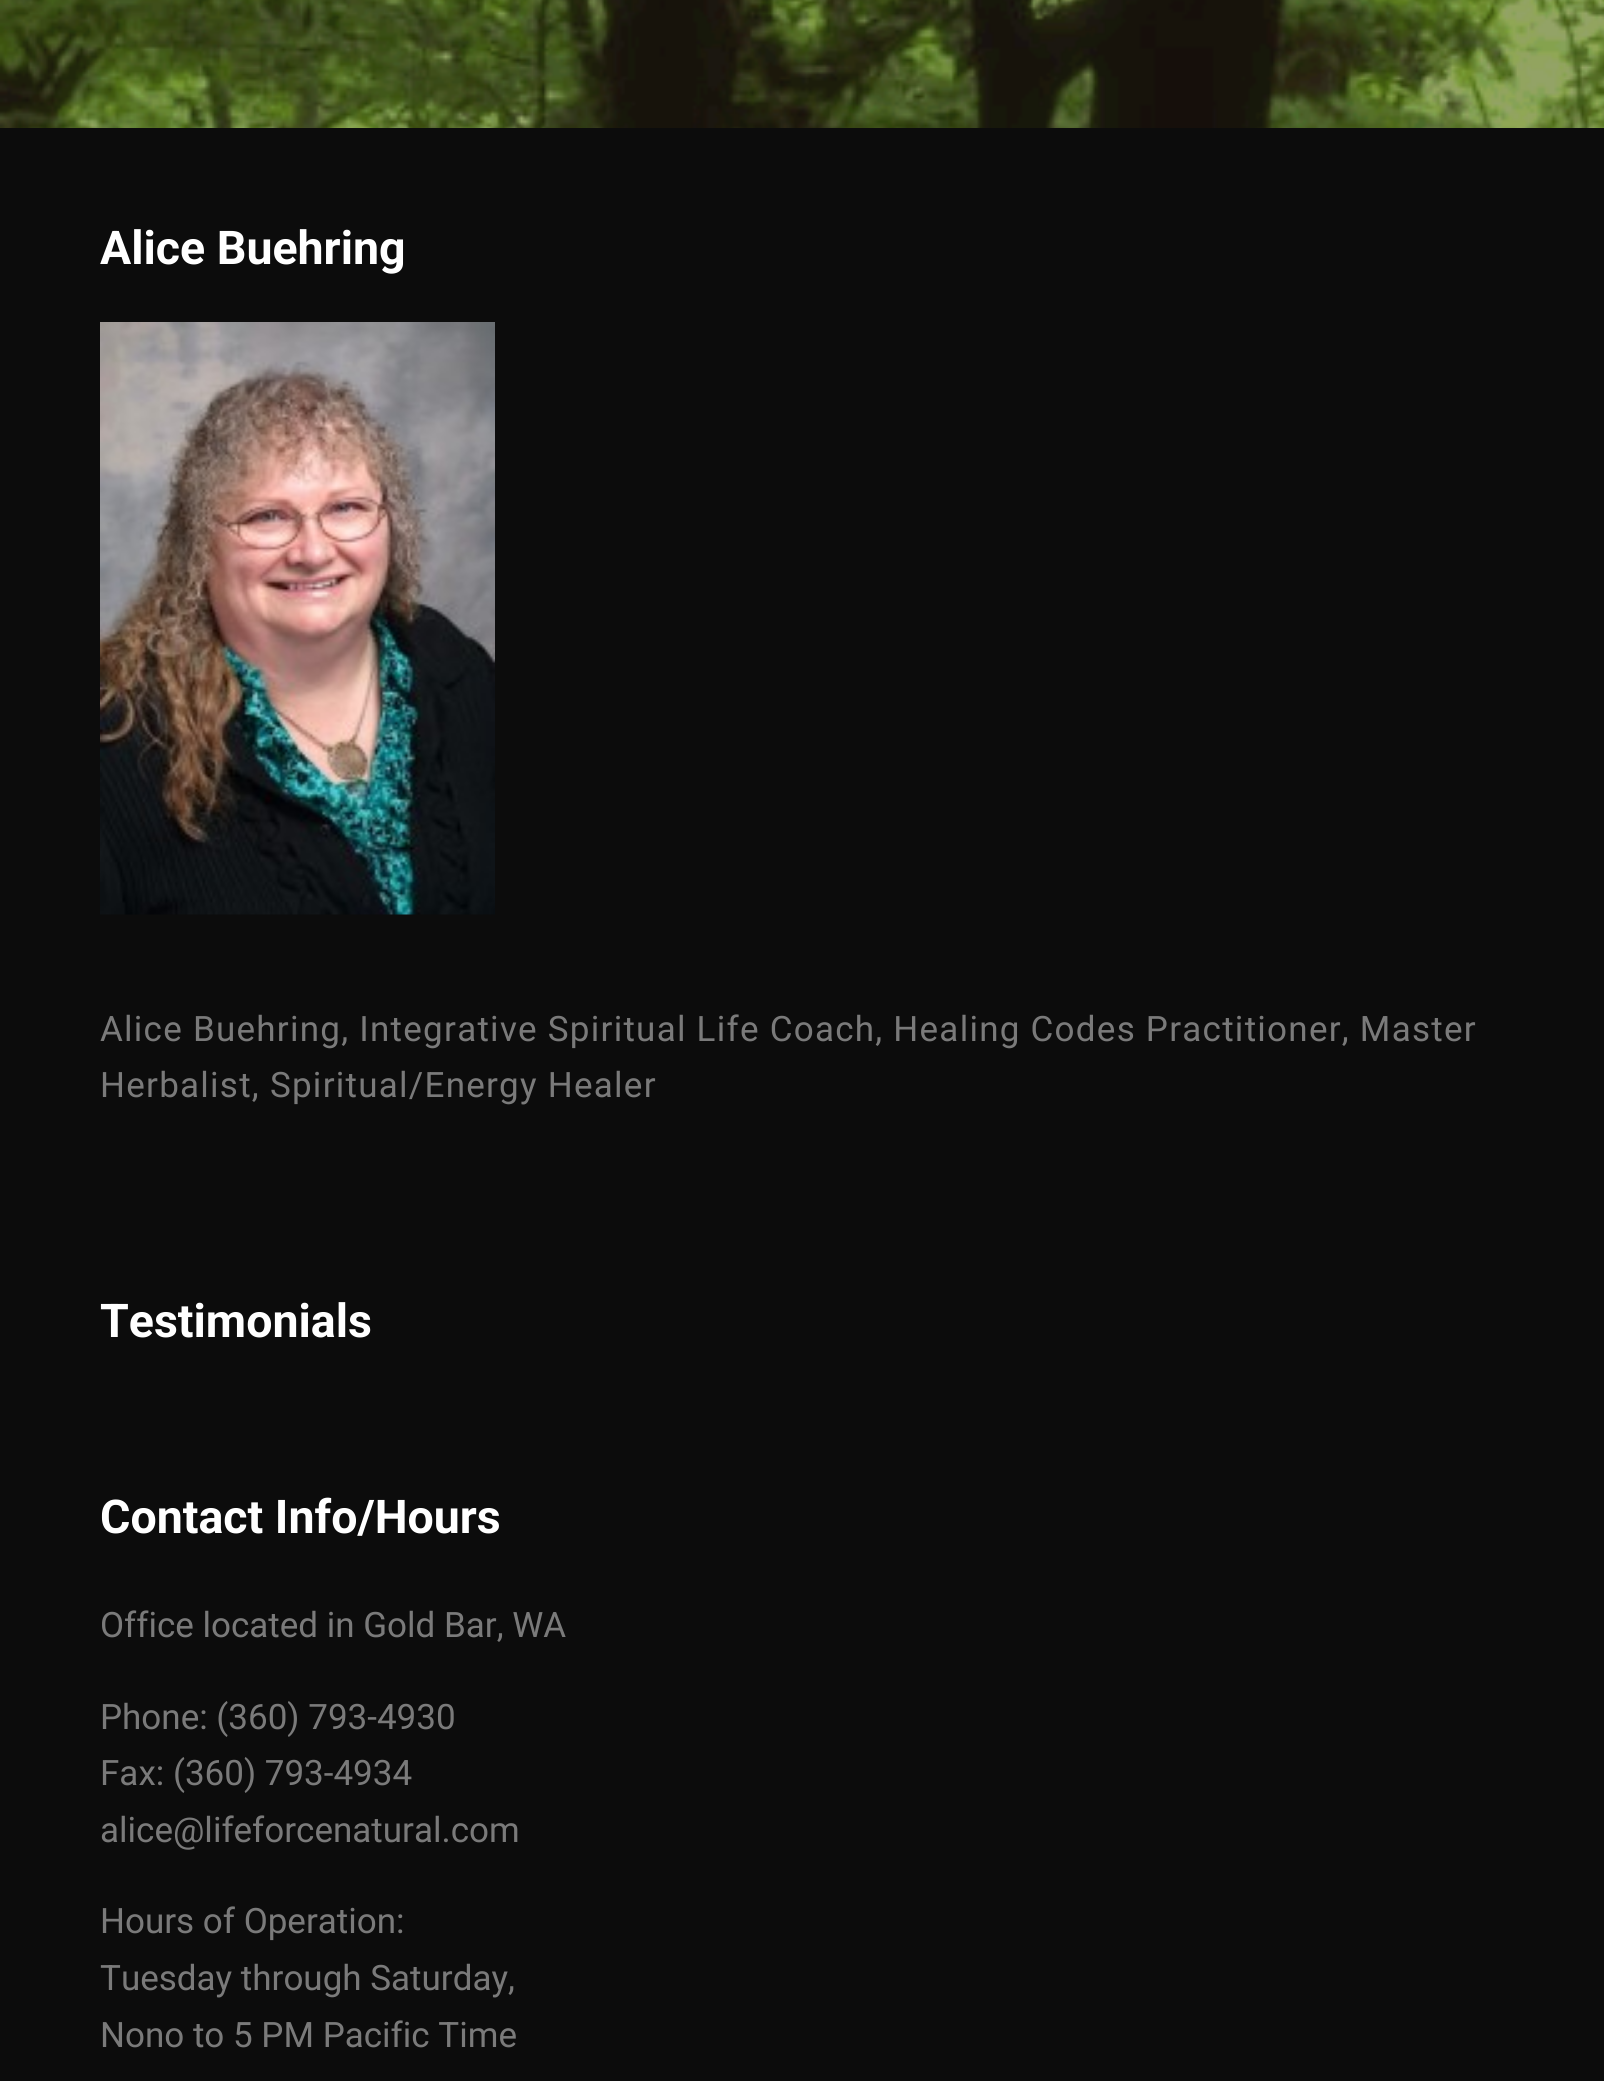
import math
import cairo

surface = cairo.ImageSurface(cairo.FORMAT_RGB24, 1604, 2081)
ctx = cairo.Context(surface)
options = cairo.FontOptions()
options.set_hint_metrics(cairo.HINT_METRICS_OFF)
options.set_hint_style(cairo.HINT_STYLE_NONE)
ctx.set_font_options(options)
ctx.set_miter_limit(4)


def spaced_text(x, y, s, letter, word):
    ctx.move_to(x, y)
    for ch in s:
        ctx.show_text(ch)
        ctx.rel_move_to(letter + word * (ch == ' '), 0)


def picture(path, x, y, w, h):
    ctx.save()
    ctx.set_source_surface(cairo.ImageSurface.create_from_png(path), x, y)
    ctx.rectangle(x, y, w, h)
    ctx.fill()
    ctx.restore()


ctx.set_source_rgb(0.129, 0.133, 0.106)
ctx.paint()
picture("img1.png", 0, 0, 1604, 128)
ctx.set_source_rgb(0.047, 0.047, 0.047)
ctx.rectangle(0, 128, 1604, 1953)
ctx.fill()
ctx.select_font_face("Roboto", cairo.FONT_SLANT_NORMAL, cairo.FONT_WEIGHT_BOLD)
ctx.set_font_size(46.5)
ctx.set_source_rgb(1, 1, 1)
ctx.move_to(100, 264)
ctx.show_text("Alice Buehring")
picture("img2.png", 100, 322, 395, 593)
ctx.select_font_face("Roboto")
ctx.set_font_size(35)
ctx.set_source_rgb(0.478, 0.478, 0.478)
spaced_text(100, 1041, "Alice Buehring, Integrative Spiritual Life Coach, Healing Codes Practitioner, Master", 1.25, 0)
spaced_text(100, 1097, "Herbalist, Spiritual/Energy Healer", 1.25, 0)
ctx.select_font_face("Roboto", cairo.FONT_SLANT_NORMAL, cairo.FONT_WEIGHT_BOLD)
ctx.set_font_size(46.5)
ctx.set_source_rgb(1, 1, 1)
ctx.move_to(100, 1337)
ctx.show_text("Testimonials")
ctx.move_to(100, 1533)
ctx.show_text("Contact Info/Hours")
ctx.select_font_face("Roboto")
ctx.set_font_size(35)
ctx.set_source_rgb(0.478, 0.478, 0.478)
ctx.move_to(100, 1637)
ctx.show_text("Office located in Gold Bar, WA")
ctx.move_to(100, 1729)
ctx.show_text("Phone: (360) 793-4930")
ctx.move_to(100, 1785)
ctx.show_text("Fax: (360) 793-4934")
ctx.move_to(100, 1842)
ctx.show_text("alice@lifeforcenatural.com")
ctx.move_to(100, 1933)
ctx.show_text("Hours of Operation:")
ctx.move_to(100, 1990)
ctx.show_text("Tuesday through Saturday,")
ctx.move_to(100, 2047)
ctx.show_text("Nono to 5 PM Pacific Time")
surface.write_to_png("page.png")
